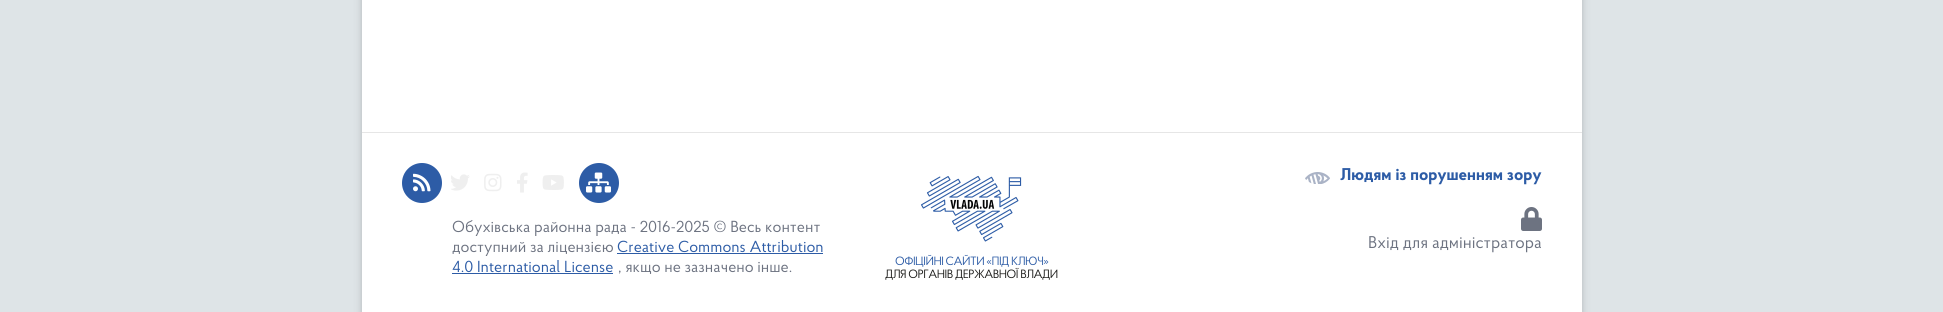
import math
import cairo

surface = cairo.ImageSurface(cairo.FORMAT_RGB24, 1943, 312)
ctx = cairo.Context(surface)
options = cairo.FontOptions()
options.set_hint_metrics(cairo.HINT_METRICS_OFF)
options.set_hint_style(cairo.HINT_STYLE_NONE)
ctx.set_font_options(options)
ctx.set_miter_limit(4)


def spaced_text(x, y, s, letter, word):
    ctx.move_to(x, y)
    for ch in s:
        ctx.show_text(ch)
        ctx.rel_move_to(letter + word * (ch == ' '), 0)


def round_rect(x, y, w, h, r):
    ctx.new_sub_path()
    for i, (u, v) in enumerate([(x + w - r, y + h - r), (x + r, y + h - r), (x + r, y + r), (x + w - r, y + r)]):
        ctx.arc(u, v, r, i * math.pi / 2, (i + 1) * math.pi / 2)
    ctx.close_path()


def shadow(x, y, w, h, r, blur, alpha):
    ctx.push_group_with_content(cairo.CONTENT_ALPHA)
    ctx.set_operator(cairo.OPERATOR_SOURCE)
    for i in range(15, -16, -2):
        e = blur * i / 6
        if min(w, h) + 2 * e > 0:
            ctx.set_source_rgba(0, 0, 0, alpha * math.erfc((i - 1) / 8.5) / 2)
            round_rect(x - e, y - e, w + 2 * e, h + 2 * e, max(0, min(r + e + blur * .6, min(w, h) / 2 + e)))
            ctx.fill()
    ctx.mask(ctx.pop_group())


def picture(path, x, y, w, h):
    ctx.save()
    ctx.set_source_surface(cairo.ImageSurface.create_from_png(path), x, y)
    ctx.rectangle(x, y, w, h)
    ctx.fill()
    ctx.restore()


ctx.set_source_rgb(0.871, 0.894, 0.906)
ctx.paint()
ctx.set_source_rgb(0, 0, 0)
shadow(362, -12, 1220, 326, 0, 4, 0.2)
ctx.set_source_rgb(1, 1, 1)
ctx.rectangle(362, 0, 1220, 312)
ctx.fill()
ctx.set_source_rgb(0.902, 0.902, 0.902)
ctx.rectangle(362, 132, 1220, 1)
ctx.fill()
ctx.set_source_rgb(0.176, 0.361, 0.651)
ctx.arc(422, 183, 20, 0, 2 * math.pi)
ctx.fill()
picture("img1.png", 413, 173, 18, 19)
picture("img2.png", 451, 174, 19, 17)
picture("img3.png", 484, 173, 18, 19)
picture("img4.png", 517, 172, 11, 21)
picture("img5.png", 542, 175, 22, 15)
ctx.arc(599, 183, 20, 0, 2 * math.pi)
ctx.fill()
picture("img6.png", 586, 172, 25, 21)
ctx.select_font_face("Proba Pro")
ctx.set_font_size(16)
ctx.set_source_rgb(0.427, 0.451, 0.506)
ctx.move_to(452, 232)
ctx.show_text("Обухівська районна рада - 2016-2025 © Весь контент")
ctx.move_to(452, 252)
ctx.show_text("доступний за ліцензією")
ctx.set_source_rgb(0.176, 0.361, 0.651)
ctx.move_to(617, 252)
ctx.show_text("Creative Commons Attribution")
ctx.rectangle(617, 253, 206, 1)
ctx.fill()
ctx.move_to(452, 272)
ctx.show_text("4.0 International License")
ctx.rectangle(452, 273, 161, 1)
ctx.fill()
ctx.set_source_rgb(0.427, 0.451, 0.506)
ctx.move_to(618, 272)
ctx.show_text(", якщо не зазначено інше.")
picture("img7.png", 921, 175, 101, 67)
ctx.set_font_size(12)
ctx.set_source_rgb(0.176, 0.361, 0.651)
spaced_text(895, 265, "ОФІЦІЙНІ САЙТИ «ПІД КЛЮЧ»", -0.5, 0)
ctx.set_source_rgb(0.114, 0.114, 0.106)
spaced_text(885, 278, "ДЛЯ ОРГАНІВ ДЕРЖАВНОЇ ВЛАДИ", -0.5, 0)
picture("img8.png", 1305, 172, 25, 12)
ctx.select_font_face("Proba Pro", cairo.FONT_SLANT_NORMAL, cairo.FONT_WEIGHT_BOLD)
ctx.set_font_size(17)
ctx.set_source_rgb(0.176, 0.361, 0.651)
ctx.move_to(1340, 180)
ctx.show_text("Людям із порушенням зору")
picture("img9.png", 1521, 207, 21, 24)
ctx.select_font_face("Proba Pro")
ctx.set_source_rgb(0.427, 0.451, 0.506)
ctx.move_to(1368, 248)
ctx.show_text("Вхід для адміністратора")
surface.write_to_png("page.png")
